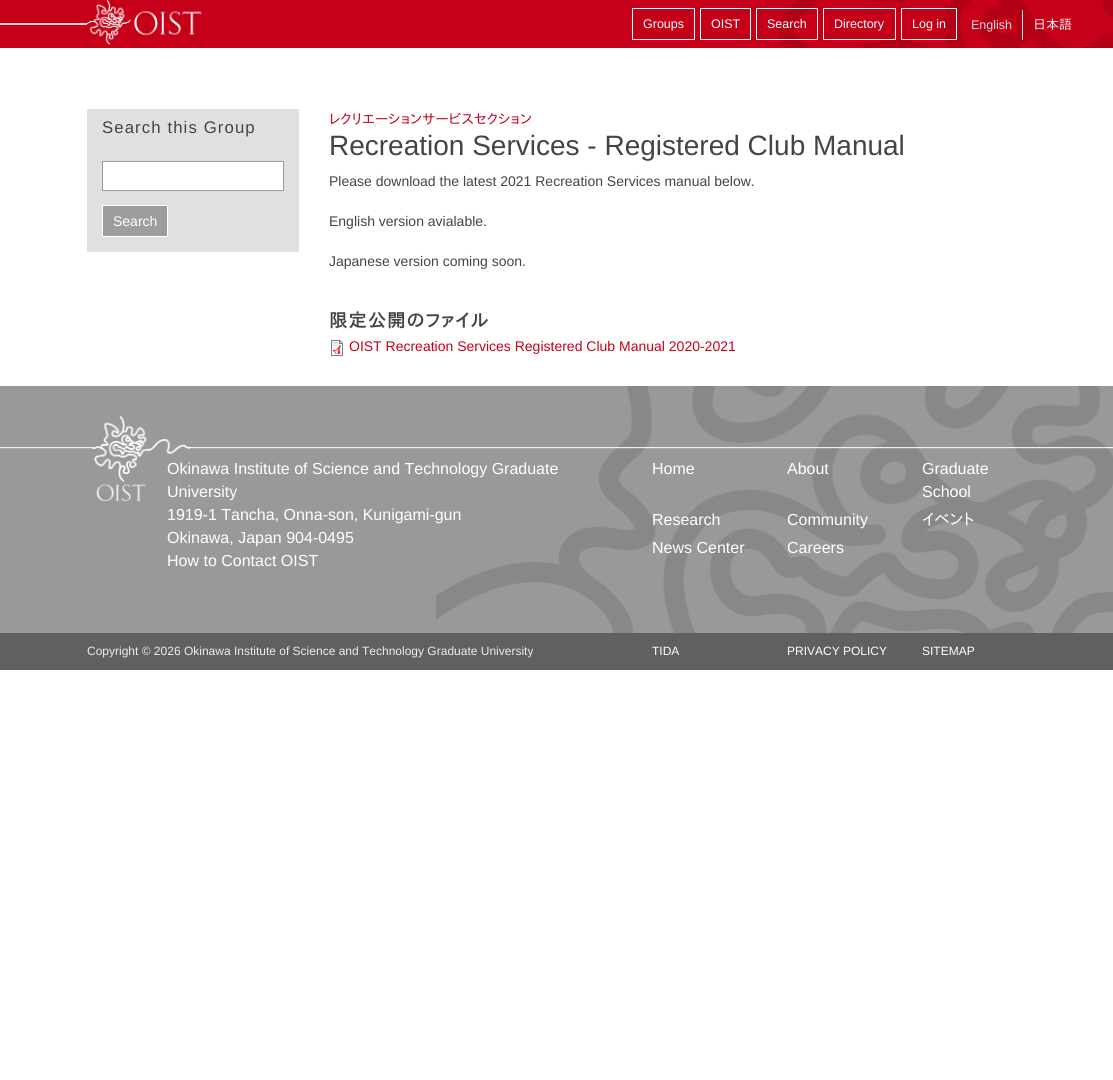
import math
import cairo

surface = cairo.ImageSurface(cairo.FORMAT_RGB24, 1113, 1080)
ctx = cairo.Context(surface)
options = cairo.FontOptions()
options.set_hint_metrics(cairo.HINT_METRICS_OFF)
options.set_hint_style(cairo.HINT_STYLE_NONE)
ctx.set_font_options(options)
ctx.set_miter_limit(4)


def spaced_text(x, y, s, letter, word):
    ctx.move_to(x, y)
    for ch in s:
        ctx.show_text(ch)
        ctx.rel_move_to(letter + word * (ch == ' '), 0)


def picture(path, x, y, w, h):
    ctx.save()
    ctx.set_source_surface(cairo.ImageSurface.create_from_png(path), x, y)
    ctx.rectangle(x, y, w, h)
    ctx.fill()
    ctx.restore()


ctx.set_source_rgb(1, 1, 1)
ctx.paint()
ctx.set_source_rgb(0.78, 0, 0.098)
ctx.rectangle(0, 0, 1113, 48)
ctx.fill()
picture("img1.png", 777, 0, 336, 48)
ctx.set_source_rgb(0.957, 0.808, 0.827)
ctx.rectangle(0, 23, 87, 2)
ctx.fill()
picture("img2.png", 87, 0, 115, 45)
ctx.rectangle(632.5, 8.5, 62, 31)
ctx.set_source_rgb(1, 1, 1)
ctx.set_line_width(1)
ctx.stroke()
ctx.select_font_face("Liberation Sans")
ctx.set_font_size(12.5)
ctx.move_to(643, 28)
ctx.show_text("Groups")
ctx.rectangle(700.5, 8.5, 50, 31)
ctx.stroke()
ctx.move_to(711, 28)
ctx.show_text("OIST")
ctx.rectangle(756.5, 8.5, 61, 31)
ctx.stroke()
ctx.move_to(767, 28)
ctx.show_text("Search")
ctx.rectangle(823.5, 8.5, 72, 31)
ctx.stroke()
ctx.move_to(834, 28)
ctx.show_text("Directory")
ctx.rectangle(901.5, 8.5, 55, 31)
ctx.stroke()
ctx.move_to(912, 28)
ctx.show_text("Log in")
ctx.set_source_rgb(0.867, 0.867, 0.867)
ctx.move_to(971, 29)
ctx.show_text("English")
ctx.rectangle(1022, 10, 1, 30)
ctx.fill()
ctx.select_font_face("IPAPGothic")
ctx.set_font_size(13)
ctx.set_source_rgb(1, 1, 1)
ctx.move_to(1033, 29)
ctx.show_text("日本語")
ctx.set_source_rgb(0.878, 0.878, 0.878)
ctx.rectangle(87, 109, 212, 143)
ctx.fill()
ctx.select_font_face("Liberation Sans")
ctx.set_font_size(16.75)
ctx.set_source_rgb(0.267, 0.267, 0.267)
spaced_text(102, 133, "Search this Group", 1.1, 0)
ctx.set_source_rgb(1, 1, 1)
ctx.rectangle(102.5, 161.5, 181, 29)
ctx.fill_preserve()
ctx.set_source_rgb(0.612, 0.612, 0.612)
ctx.stroke()
ctx.set_source_rgb(0.616, 0.616, 0.616)
ctx.rectangle(102.5, 205.5, 65, 31)
ctx.fill_preserve()
ctx.set_source_rgb(1, 1, 1)
ctx.stroke()
ctx.set_font_size(14)
ctx.move_to(113, 226)
ctx.show_text("Search")
ctx.select_font_face("IPAPGothic")
ctx.set_source_rgb(0.78, 0, 0.098)
ctx.move_to(329, 124)
ctx.show_text("レクリエーションサービスセクション")
ctx.select_font_face("Liberation Sans")
ctx.set_font_size(28)
ctx.set_source_rgb(0.267, 0.267, 0.267)
ctx.move_to(329, 155)
ctx.show_text("Recreation Services - Registered Club Manual")
ctx.set_font_size(14)
ctx.move_to(329, 186)
ctx.show_text("Please download the latest 2021 Recreation Services manual below.")
ctx.move_to(329, 226)
ctx.show_text("English version avialable.")
ctx.move_to(329, 266)
ctx.show_text("Japanese version coming soon.")
ctx.select_font_face("IPAPGothic", cairo.FONT_SLANT_NORMAL, cairo.FONT_WEIGHT_BOLD)
ctx.set_font_size(18.25)
spaced_text(329, 327, "限定公開のファイル", 1.1, 0)
picture("img3.png", 331, 340, 12, 16)
ctx.select_font_face("Liberation Sans")
ctx.set_font_size(14)
ctx.set_source_rgb(0.78, 0, 0.098)
ctx.move_to(349, 351)
ctx.show_text("OIST Recreation Services Registered Club Manual 2020-2021")
ctx.set_source_rgb(0.6, 0.6, 0.6)
ctx.rectangle(0, 386, 1113, 247)
ctx.fill()
picture("img4.png", 0, 386, 1113, 247)
picture("img5.png", 92, 416, 98, 85)
ctx.set_font_size(16)
ctx.set_source_rgb(1, 1, 1)
ctx.move_to(167, 474)
ctx.show_text("Okinawa Institute of Science and Technology Graduate")
ctx.move_to(167, 497)
ctx.show_text("University")
ctx.move_to(167, 520)
ctx.show_text("1919-1 Tancha, Onna-son, Kunigami-gun")
ctx.move_to(167, 543)
ctx.show_text("Okinawa, Japan 904-0495")
ctx.move_to(167, 566)
ctx.show_text("How to Contact OIST")
ctx.move_to(652, 474)
ctx.show_text("Home")
ctx.move_to(787, 474)
ctx.show_text("About")
ctx.move_to(922, 474)
ctx.show_text("Graduate")
ctx.move_to(922, 497)
ctx.show_text("School")
ctx.move_to(652, 525)
ctx.show_text("Research")
ctx.move_to(787, 525)
ctx.show_text("Community")
ctx.select_font_face("IPAPGothic")
ctx.move_to(922, 525)
ctx.show_text("イベント")
ctx.select_font_face("Liberation Sans")
ctx.move_to(652, 553)
ctx.show_text("News Center")
ctx.move_to(787, 553)
ctx.show_text("Careers")
ctx.set_source_rgb(0.376, 0.376, 0.376)
ctx.rectangle(0, 633, 1113, 37)
ctx.fill()
ctx.set_font_size(12)
ctx.set_source_rgb(0.929, 0.929, 0.929)
ctx.move_to(87, 655)
ctx.show_text("Copyright © 2026 Okinawa Institute of Science and Technology Graduate University")
ctx.set_source_rgb(1, 1, 1)
ctx.move_to(652, 655)
ctx.show_text("TIDA")
ctx.move_to(787, 655)
ctx.show_text("PRIVACY POLICY")
ctx.move_to(922, 655)
ctx.show_text("SITEMAP")
surface.write_to_png("page.png")
